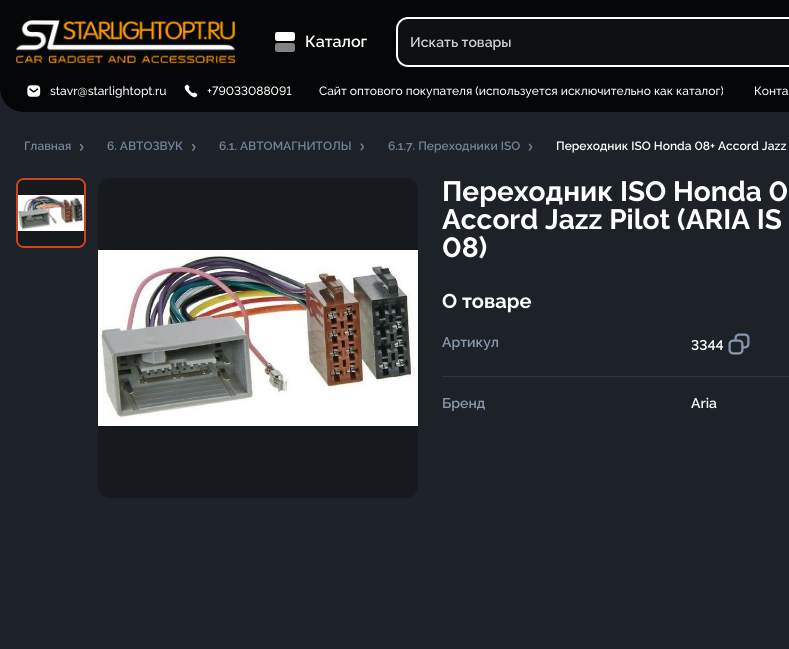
import math
import cairo

surface = cairo.ImageSurface(cairo.FORMAT_RGB24, 789, 649)
ctx = cairo.Context(surface)
options = cairo.FontOptions()
options.set_hint_metrics(cairo.HINT_METRICS_OFF)
options.set_hint_style(cairo.HINT_STYLE_NONE)
ctx.set_font_options(options)
ctx.set_miter_limit(4)


def round_rect(x, y, w, h, r):
    ctx.new_sub_path()
    for i, (u, v) in enumerate([(x + w - r, y + h - r), (x + r, y + h - r), (x + r, y + r), (x + w - r, y + r)]):
        ctx.arc(u, v, r, i * math.pi / 2, (i + 1) * math.pi / 2)
    ctx.close_path()


def picture(path, x, y, w, h):
    ctx.save()
    ctx.set_source_surface(cairo.ImageSurface.create_from_png(path), x, y)
    ctx.rectangle(x, y, w, h)
    ctx.fill()
    ctx.restore()


ctx.set_source_rgb(0.114, 0.133, 0.161)
ctx.paint()
ctx.set_source_rgb(0.016, 0.02, 0.027)
ctx.new_path()
ctx.move_to(0, 0)
ctx.line_to(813, 0)
ctx.line_to(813, 88)
ctx.curve_to(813, 101.5, 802.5, 112, 789, 112)
ctx.line_to(24, 112)
ctx.curve_to(10.5, 112, 0, 101.5, 0, 88)
ctx.close_path()
ctx.fill()
picture("img1.png", 16, 20, 220, 44)
picture("img2.png", 275, 32, 20, 20)
ctx.select_font_face("Raleway SemiBold")
ctx.set_font_size(16)
ctx.set_source_rgb(1, 1, 1)
ctx.move_to(305, 47)
ctx.show_text("Каталог")
round_rect(396, 17, 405, 50, 12)
ctx.fill()
ctx.set_source_rgb(0.051, 0.059, 0.071)
round_rect(398, 19, 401, 46, 10)
ctx.fill()
ctx.set_font_size(14)
ctx.set_source_rgb(0.812, 0.812, 0.816)
ctx.move_to(410, 47)
ctx.show_text("Искать товары")
picture("img3.png", 27, 85, 14, 12)
ctx.select_font_face("Raleway Medium")
ctx.set_font_size(12)
ctx.set_source_rgb(1, 1, 1)
ctx.move_to(50, 95)
ctx.show_text("stavr@starlightopt.ru")
picture("img4.png", 184, 84, 14, 14)
ctx.select_font_face("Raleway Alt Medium")
ctx.move_to(207, 95)
ctx.show_text("+79033088091")
ctx.select_font_face("Raleway Medium")
ctx.move_to(319, 95)
ctx.show_text("Сайт оптового покупателя (используется исключительно как каталог)")
ctx.move_to(754, 95)
ctx.show_text("Конта")
ctx.select_font_face("Raleway SemiBold")
ctx.set_source_rgb(0.443, 0.51, 0.6)
ctx.move_to(24, 150)
ctx.show_text("Главная")
picture("img5.png", 79, 143, 5, 8)
ctx.move_to(107, 150)
ctx.show_text("6. АВТОЗВУК")
picture("img6.png", 192, 143, 4, 8)
ctx.move_to(219, 150)
ctx.show_text("6.1. АВТОМАГНИТОЛЫ")
picture("img7.png", 360, 143, 4, 8)
ctx.move_to(388, 150)
ctx.show_text("6.1.7. Переходники ISO")
picture("img8.png", 528, 143, 5, 8)
ctx.select_font_face("Raleway Alt SemiBold")
ctx.set_source_rgb(1, 1, 1)
ctx.move_to(556, 150)
ctx.show_text("Переходник ISO Honda 08+ Accord Jazz")
round_rect(17, 179, 68, 68, 7)
ctx.set_source_rgb(0.816, 0.267, 0.106)
ctx.stroke()
ctx.set_source_rgb(0.086, 0.102, 0.122)
round_rect(18, 180, 66, 66, 6)
ctx.fill()
picture("img9.png", 18, 195, 66, 36)
round_rect(98, 178, 320, 320, 12)
ctx.fill()
picture("img10.png", 98, 250, 320, 176)
ctx.select_font_face("Raleway Alt", cairo.FONT_SLANT_NORMAL, cairo.FONT_WEIGHT_BOLD)
ctx.set_font_size(28)
ctx.set_source_rgb(1, 1, 1)
ctx.move_to(442, 201)
ctx.show_text("Переходник ISO Honda 0")
ctx.select_font_face("Raleway", cairo.FONT_SLANT_NORMAL, cairo.FONT_WEIGHT_BOLD)
ctx.move_to(442, 229)
ctx.show_text("Accord Jazz Pilot (ARIA IS")
ctx.select_font_face("Raleway Alt", cairo.FONT_SLANT_NORMAL, cairo.FONT_WEIGHT_BOLD)
ctx.move_to(442, 257)
ctx.show_text("08)")
ctx.select_font_face("Raleway", cairo.FONT_SLANT_NORMAL, cairo.FONT_WEIGHT_BOLD)
ctx.set_font_size(20)
ctx.move_to(442, 308)
ctx.show_text("О товаре")
ctx.set_source_rgb(0.173, 0.2, 0.239)
ctx.rectangle(442, 376, 347, 1)
ctx.fill()
ctx.select_font_face("Raleway SemiBold")
ctx.set_font_size(14)
ctx.set_source_rgb(0.529, 0.592, 0.678)
ctx.move_to(442, 347)
ctx.show_text("Артикул")
ctx.select_font_face("Raleway Alt SemiBold")
ctx.set_source_rgb(1, 1, 1)
ctx.move_to(691, 350)
ctx.show_text("3344")
picture("img11.png", 728, 333, 22, 22)
ctx.select_font_face("Raleway SemiBold")
ctx.set_source_rgb(0.529, 0.592, 0.678)
ctx.move_to(442, 408)
ctx.show_text("Бренд")
ctx.set_source_rgb(1, 1, 1)
ctx.move_to(691, 408)
ctx.show_text("Aria")
surface.write_to_png("page.png")
